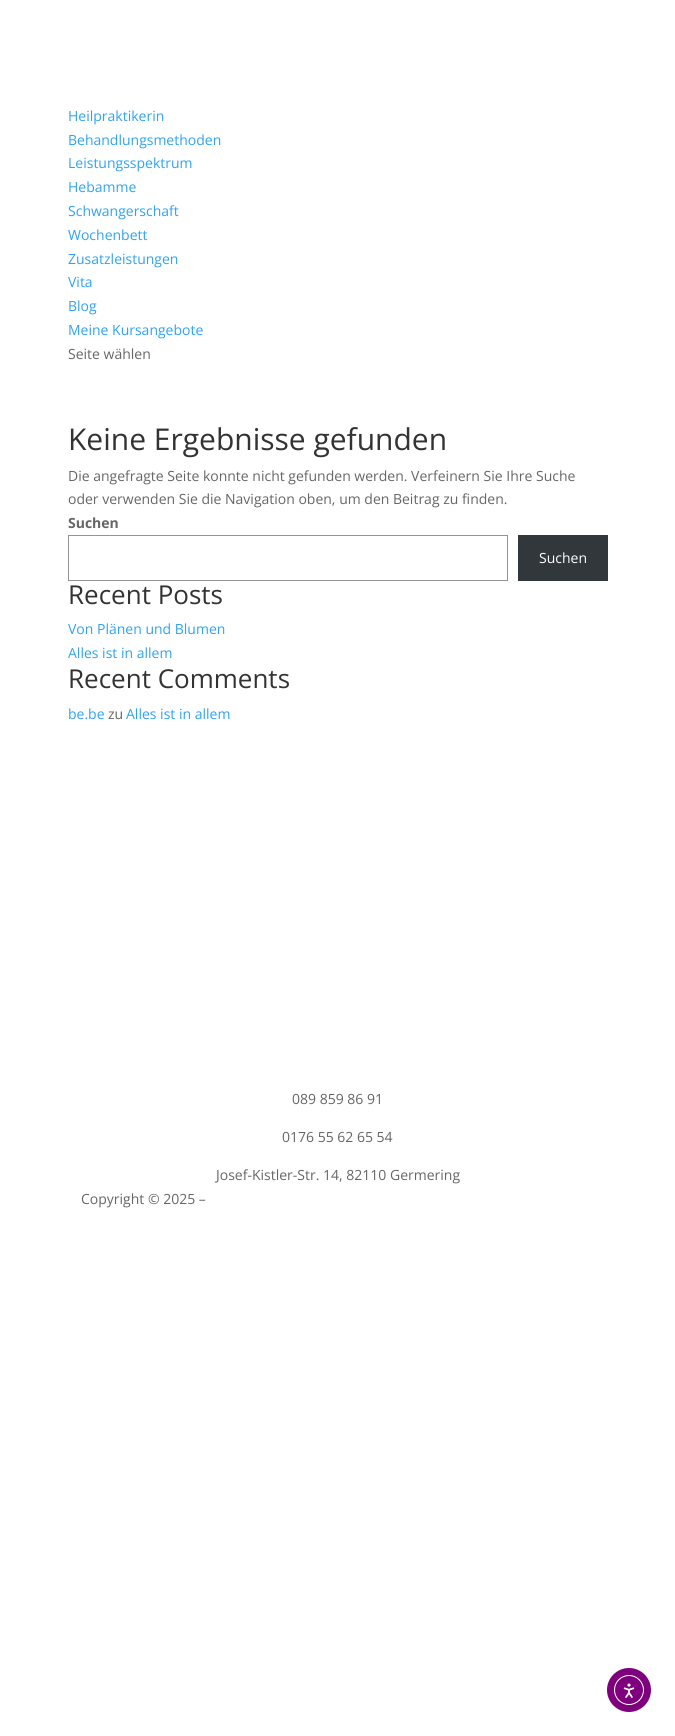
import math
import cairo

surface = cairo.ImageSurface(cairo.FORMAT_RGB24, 675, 1736)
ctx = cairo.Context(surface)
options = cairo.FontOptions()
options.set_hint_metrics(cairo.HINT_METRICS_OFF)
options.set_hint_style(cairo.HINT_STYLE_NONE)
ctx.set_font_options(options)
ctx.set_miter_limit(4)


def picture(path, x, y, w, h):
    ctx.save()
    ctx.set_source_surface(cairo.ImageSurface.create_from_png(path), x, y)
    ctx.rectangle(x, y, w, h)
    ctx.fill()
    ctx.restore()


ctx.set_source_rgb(1, 1, 1)
ctx.paint()
ctx.select_font_face("Open Sans")
ctx.set_font_size(14)
ctx.set_source_rgb(0.18, 0.639, 0.949)
ctx.move_to(68, 121)
ctx.show_text("Heilpraktikerin")
ctx.move_to(68, 145)
ctx.show_text("Behandlungsmethoden")
ctx.move_to(68, 168)
ctx.show_text("Leistungsspektrum")
ctx.move_to(68, 192)
ctx.show_text("Hebamme")
ctx.move_to(68, 216)
ctx.show_text("Schwangerschaft")
ctx.move_to(68, 240)
ctx.show_text("Wochenbett")
ctx.move_to(68, 264)
ctx.show_text("Zusatzleistungen")
ctx.move_to(68, 287)
ctx.show_text("Vita")
ctx.move_to(68, 311)
ctx.show_text("Blog")
ctx.move_to(68, 335)
ctx.show_text("Meine Kursangebote")
ctx.set_source_rgb(0.4, 0.4, 0.4)
ctx.move_to(68, 359)
ctx.show_text("Seite wählen")
ctx.set_font_size(30)
ctx.set_source_rgb(0.2, 0.2, 0.2)
ctx.move_to(68, 450)
ctx.show_text("Keine Ergebnisse gefunden")
ctx.set_font_size(14)
ctx.set_source_rgb(0.4, 0.4, 0.4)
ctx.move_to(68, 481)
ctx.show_text("Die angefragte Seite konnte nicht gefunden werden. Verfeinern Sie Ihre Suche")
ctx.move_to(68, 504)
ctx.show_text("oder verwenden Sie die Navigation oben, um den Beitrag zu finden.")
ctx.select_font_face("Open Sans", cairo.FONT_SLANT_NORMAL, cairo.FONT_WEIGHT_BOLD)
ctx.move_to(68, 528)
ctx.show_text("Suchen")
ctx.rectangle(68.5, 535.5, 439, 45)
ctx.set_source_rgb(0.58, 0.58, 0.58)
ctx.set_line_width(1)
ctx.stroke()
ctx.set_source_rgb(0.196, 0.216, 0.235)
ctx.rectangle(518, 535, 90, 46)
ctx.fill()
ctx.select_font_face("Open Sans")
ctx.set_source_rgb(1, 1, 1)
ctx.move_to(539, 563)
ctx.show_text("Suchen")
ctx.set_font_size(26)
ctx.set_source_rgb(0.2, 0.2, 0.2)
ctx.move_to(68, 604)
ctx.show_text("Recent Posts")
ctx.set_font_size(14)
ctx.set_source_rgb(0.18, 0.639, 0.949)
ctx.move_to(68, 634)
ctx.show_text("Von Plänen und Blumen")
ctx.move_to(68, 658)
ctx.show_text("Alles ist in allem")
ctx.set_font_size(26)
ctx.set_source_rgb(0.2, 0.2, 0.2)
ctx.move_to(68, 688)
ctx.show_text("Recent Comments")
ctx.set_font_size(14)
ctx.set_source_rgb(0.18, 0.639, 0.949)
ctx.move_to(68, 719)
ctx.show_text("be.be")
ctx.set_source_rgb(0.4, 0.4, 0.4)
ctx.move_to(108, 719)
ctx.show_text("zu")
ctx.set_source_rgb(0.18, 0.639, 0.949)
ctx.move_to(126, 719)
ctx.show_text("Alles ist in allem")
ctx.set_source_rgb(0.4, 0.4, 0.4)
ctx.move_to(292, 1104)
ctx.show_text("089 859 86 91")
ctx.move_to(282, 1142)
ctx.show_text("0176 55 62 65 54")
ctx.move_to(216, 1180)
ctx.show_text("Josef-Kistler-Str. 14, 82110 Germering")
ctx.move_to(81, 1204)
ctx.show_text("Copyright © 2025 –")
ctx.set_source_rgb(0.498, 0, 0.49)
ctx.new_path()
ctx.arc(629, 1690, 22, 0, 2 * math.pi)
ctx.fill()
ctx.arc(629, 1690, 14.5, 0, 2 * math.pi)
ctx.set_source_rgb(1, 1, 1)
ctx.stroke()
picture("img1.png", 623, 1683, 12, 15)
surface.write_to_png("page.png")
